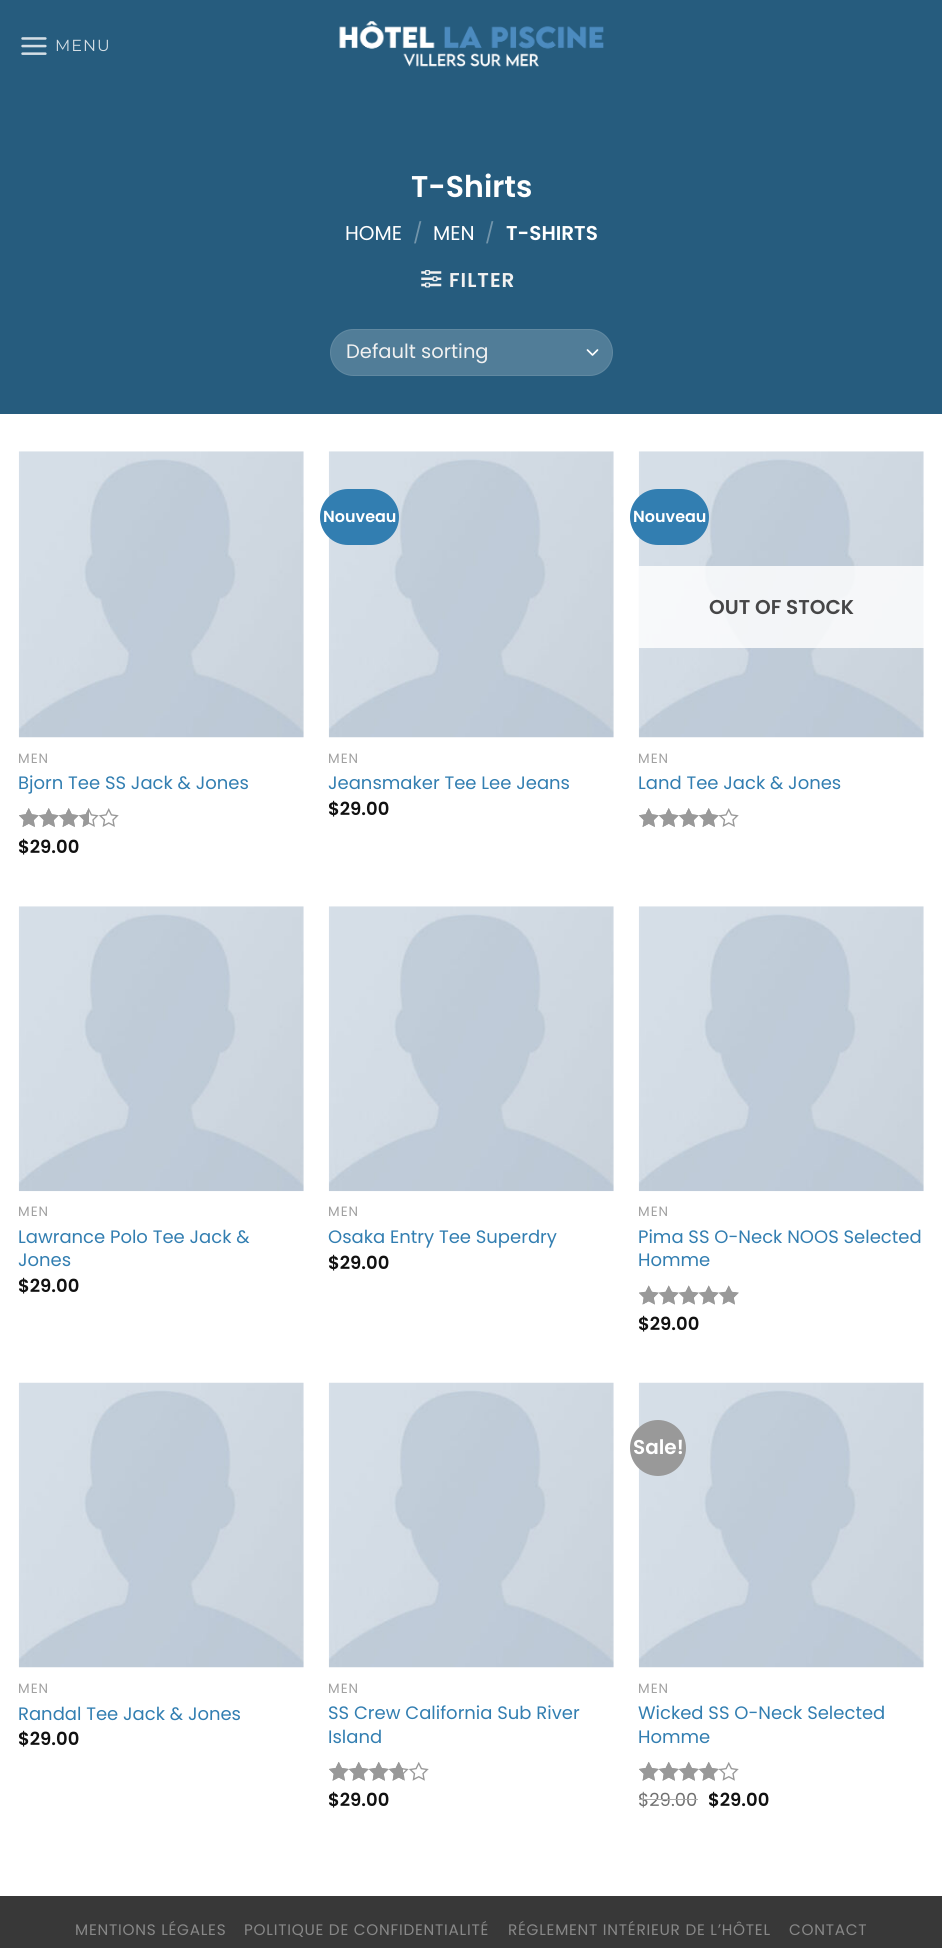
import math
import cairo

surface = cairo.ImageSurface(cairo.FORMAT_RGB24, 942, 1948)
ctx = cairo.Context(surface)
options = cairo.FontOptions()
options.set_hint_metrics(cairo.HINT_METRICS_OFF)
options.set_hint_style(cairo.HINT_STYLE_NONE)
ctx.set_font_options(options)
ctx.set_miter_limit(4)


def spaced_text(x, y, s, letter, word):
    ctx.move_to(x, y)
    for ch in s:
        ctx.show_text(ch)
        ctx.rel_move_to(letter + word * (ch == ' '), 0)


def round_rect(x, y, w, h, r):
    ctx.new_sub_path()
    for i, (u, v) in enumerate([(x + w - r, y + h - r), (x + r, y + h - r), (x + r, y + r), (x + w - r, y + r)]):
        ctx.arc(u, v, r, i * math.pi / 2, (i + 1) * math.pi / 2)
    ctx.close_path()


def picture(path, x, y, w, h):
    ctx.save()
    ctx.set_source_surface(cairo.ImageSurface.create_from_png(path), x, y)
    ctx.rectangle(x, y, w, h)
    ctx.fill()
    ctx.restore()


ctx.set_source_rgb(1, 1, 1)
ctx.paint()
ctx.set_source_rgb(0.149, 0.361, 0.494)
ctx.rectangle(0, 0, 942, 414)
ctx.fill()
picture("img1.png", 21, 37, 26, 18)
ctx.select_font_face("Montserrat Thin")
ctx.set_font_size(16)
ctx.set_source_rgb(0.831, 0.871, 0.898)
spaced_text(55, 51, "MENU", 1, 0)
picture("img2.png", 339, 21, 265, 46)
ctx.select_font_face("Poppins SemiBold")
ctx.set_font_size(30)
ctx.set_source_rgb(1, 1, 1)
ctx.move_to(411, 197)
ctx.show_text("T-Shirts")
ctx.select_font_face("Poppins")
ctx.set_font_size(20)
ctx.move_to(345, 240)
ctx.show_text("HOME")
ctx.set_source_rgb(0.447, 0.584, 0.671)
ctx.move_to(413, 240)
ctx.show_text("/")
ctx.set_source_rgb(1, 1, 1)
ctx.move_to(433, 240)
ctx.show_text("MEN")
ctx.set_source_rgb(0.447, 0.584, 0.671)
ctx.move_to(485, 240)
ctx.show_text("/")
ctx.select_font_face("Poppins SemiBold")
ctx.set_source_rgb(1, 1, 1)
ctx.move_to(506, 240)
ctx.show_text("T-SHIRTS")
picture("img3.png", 421, 270, 21, 18)
ctx.set_source_rgb(0.945, 0.945, 0.945)
spaced_text(449, 287, "FILTER", 1, 0)
ctx.set_source_rgb(0.318, 0.49, 0.596)
round_rect(330, 329, 283, 47, 23.5)
ctx.fill()
ctx.new_path()
ctx.move_to(587.5, 350)
ctx.line_to(592.5, 355)
ctx.line_to(597.5, 350)
ctx.set_source_rgb(1, 1, 1)
ctx.set_line_width(1.7)
ctx.set_line_cap(cairo.LINE_CAP_ROUND)
ctx.set_line_join(cairo.LINE_JOIN_ROUND)
ctx.stroke()
round_rect(330.5, 329.5, 282, 46, 23)
ctx.set_source_rgba(1, 1, 1, 0.09)
ctx.set_line_width(1)
ctx.set_line_cap(cairo.LINE_CAP_BUTT)
ctx.set_line_join(cairo.LINE_JOIN_MITER)
ctx.stroke()
ctx.select_font_face("Poppins")
ctx.set_font_size(19.5)
ctx.set_source_rgb(0.945, 0.945, 0.945)
ctx.move_to(346, 358)
ctx.show_text("Default sorting")
picture("img4.png", 328, 451, 286, 287)
ctx.set_source_rgb(0.196, 0.494, 0.694)
round_rect(320, 489, 79, 56, 28)
ctx.fill()
ctx.select_font_face("Poppins SemiBold")
ctx.set_font_size(16)
ctx.set_source_rgb(1, 1, 1)
ctx.move_to(323, 522)
ctx.show_text("Nouveau")
ctx.select_font_face("Poppins")
ctx.set_font_size(13.5)
ctx.set_source_rgb(0.627, 0.627, 0.627)
spaced_text(328, 763, "MEN", 1, 0)
ctx.set_font_size(18)
ctx.set_source_rgb(0.196, 0.494, 0.694)
ctx.move_to(328, 789)
ctx.show_text("Jeansmaker Tee Lee Jeans")
ctx.select_font_face("Poppins SemiBold")
ctx.set_source_rgb(0.067, 0.067, 0.067)
ctx.move_to(328, 815)
ctx.show_text("$29.00")
picture("img4.png", 638, 451, 286, 287)
ctx.set_source_rgb(0.196, 0.494, 0.694)
round_rect(630, 489, 79, 56, 28)
ctx.fill()
ctx.set_font_size(16)
ctx.set_source_rgb(1, 1, 1)
ctx.move_to(633, 522)
ctx.show_text("Nouveau")
ctx.set_source_rgba(1, 1, 1, 0.81)
ctx.rectangle(639, 566, 285, 82)
ctx.fill()
ctx.set_font_size(20)
ctx.set_source_rgb(0.275, 0.275, 0.278)
ctx.move_to(709, 614)
ctx.show_text("OUT OF STOCK")
ctx.select_font_face("Poppins")
ctx.set_font_size(13.5)
ctx.set_source_rgb(0.627, 0.627, 0.627)
spaced_text(638, 763, "MEN", 1, 0)
ctx.set_font_size(18)
ctx.set_source_rgb(0.196, 0.494, 0.694)
ctx.move_to(638, 789)
ctx.show_text("Land Tee Jack & Jones")
picture("img5.png", 639, 808, 100, 19)
picture("img6.png", 639, 808, 81, 19)
picture("img7.png", 18, 451, 286, 287)
ctx.set_font_size(13.5)
ctx.set_source_rgb(0.627, 0.627, 0.627)
spaced_text(18, 763, "MEN", 1, 0)
ctx.set_font_size(18)
ctx.set_source_rgb(0.196, 0.494, 0.694)
ctx.move_to(18, 789)
ctx.show_text("Bjorn Tee SS Jack & Jones")
picture("img5.png", 19, 808, 100, 19)
picture("img8.png", 19, 808, 70, 19)
ctx.select_font_face("Poppins SemiBold")
ctx.set_source_rgb(0.067, 0.067, 0.067)
ctx.move_to(18, 853)
ctx.show_text("$29.00")
picture("img9.png", 18, 906, 286, 286)
ctx.select_font_face("Poppins")
ctx.set_font_size(13.5)
ctx.set_source_rgb(0.627, 0.627, 0.627)
spaced_text(18, 1216, "MEN", 1, 0)
ctx.set_font_size(18)
ctx.set_source_rgb(0.196, 0.494, 0.694)
ctx.move_to(18, 1243)
ctx.show_text("Lawrance Polo Tee Jack &")
ctx.move_to(18, 1266)
ctx.show_text("Jones")
ctx.select_font_face("Poppins SemiBold")
ctx.set_source_rgb(0.067, 0.067, 0.067)
ctx.move_to(18, 1292)
ctx.show_text("$29.00")
picture("img10.png", 328, 906, 286, 286)
ctx.select_font_face("Poppins")
ctx.set_font_size(13.5)
ctx.set_source_rgb(0.627, 0.627, 0.627)
spaced_text(328, 1216, "MEN", 1, 0)
ctx.set_font_size(18)
ctx.set_source_rgb(0.196, 0.494, 0.694)
ctx.move_to(328, 1243)
ctx.show_text("Osaka Entry Tee Superdry")
ctx.select_font_face("Poppins SemiBold")
ctx.set_source_rgb(0.067, 0.067, 0.067)
ctx.move_to(328, 1269)
ctx.show_text("$29.00")
picture("img10.png", 638, 906, 286, 286)
ctx.select_font_face("Poppins")
ctx.set_font_size(13.5)
ctx.set_source_rgb(0.627, 0.627, 0.627)
spaced_text(638, 1216, "MEN", 1, 0)
ctx.set_font_size(18)
ctx.set_source_rgb(0.196, 0.494, 0.694)
ctx.move_to(638, 1243)
ctx.show_text("Pima SS O-Neck NOOS Selected")
ctx.move_to(638, 1266)
ctx.show_text("Homme")
picture("img11.png", 639, 1285, 100, 20)
picture("img12.png", 639, 1285, 100, 20)
ctx.select_font_face("Poppins SemiBold")
ctx.set_source_rgb(0.067, 0.067, 0.067)
ctx.move_to(638, 1330)
ctx.show_text("$29.00")
picture("img13.png", 18, 1382, 286, 286)
ctx.select_font_face("Poppins")
ctx.set_font_size(13.5)
ctx.set_source_rgb(0.627, 0.627, 0.627)
spaced_text(18, 1693, "MEN", 1, 0)
ctx.set_font_size(18)
ctx.set_source_rgb(0.196, 0.494, 0.694)
ctx.move_to(18, 1720)
ctx.show_text("Randal Tee Jack & Jones")
ctx.select_font_face("Poppins SemiBold")
ctx.set_source_rgb(0.067, 0.067, 0.067)
ctx.move_to(18, 1745)
ctx.show_text("$29.00")
picture("img14.png", 328, 1382, 286, 286)
ctx.select_font_face("Poppins")
ctx.set_font_size(13.5)
ctx.set_source_rgb(0.627, 0.627, 0.627)
spaced_text(328, 1693, "MEN", 1, 0)
ctx.set_font_size(18)
ctx.set_source_rgb(0.196, 0.494, 0.694)
ctx.move_to(328, 1719)
ctx.show_text("SS Crew California Sub River")
ctx.move_to(328, 1743)
ctx.show_text("Island")
picture("img15.png", 329, 1762, 100, 19)
picture("img16.png", 329, 1762, 74, 19)
ctx.select_font_face("Poppins SemiBold")
ctx.set_source_rgb(0.067, 0.067, 0.067)
ctx.move_to(328, 1806)
ctx.show_text("$29.00")
picture("img14.png", 638, 1382, 286, 286)
ctx.set_source_rgb(0.6, 0.6, 0.6)
ctx.arc(658, 1448, 28, 0, 2 * math.pi)
ctx.fill()
ctx.set_font_size(20)
ctx.set_source_rgb(1, 1, 1)
ctx.move_to(633, 1454)
ctx.show_text("Sale!")
ctx.select_font_face("Poppins")
ctx.set_font_size(13.5)
ctx.set_source_rgb(0.627, 0.627, 0.627)
spaced_text(638, 1693, "MEN", 1, 0)
ctx.set_font_size(18)
ctx.set_source_rgb(0.196, 0.494, 0.694)
ctx.move_to(638, 1719)
ctx.show_text("Wicked SS O-Neck Selected")
ctx.move_to(638, 1743)
ctx.show_text("Homme")
picture("img15.png", 639, 1762, 100, 19)
picture("img17.png", 639, 1762, 81, 19)
ctx.set_source_rgb(0.439, 0.439, 0.439)
ctx.move_to(638, 1806)
ctx.show_text("$29.00")
ctx.set_source_rgb(0.678, 0.678, 0.678)
ctx.rectangle(639, 1799, 59, 1)
ctx.fill()
ctx.select_font_face("Poppins SemiBold")
ctx.set_source_rgb(0.067, 0.067, 0.067)
ctx.move_to(708, 1806)
ctx.show_text("$29.00")
ctx.set_source_rgb(0.22, 0.22, 0.22)
ctx.rectangle(0, 1896, 942, 52)
ctx.fill()
ctx.select_font_face("Poppins")
ctx.set_font_size(15.25)
ctx.set_source_rgb(0.533, 0.533, 0.533)
spaced_text(75, 1935, "MENTIONS LÉGALES", 0.75, 0)
spaced_text(244, 1935, "POLITIQUE DE CONFIDENTIALITÉ", 0.75, 0)
spaced_text(508, 1935, "RÉGLEMENT INTÉRIEUR DE L’HÔTEL", 0.75, 0)
spaced_text(789, 1935, "CONTACT", 0.75, 0)
surface.write_to_png("page.png")
